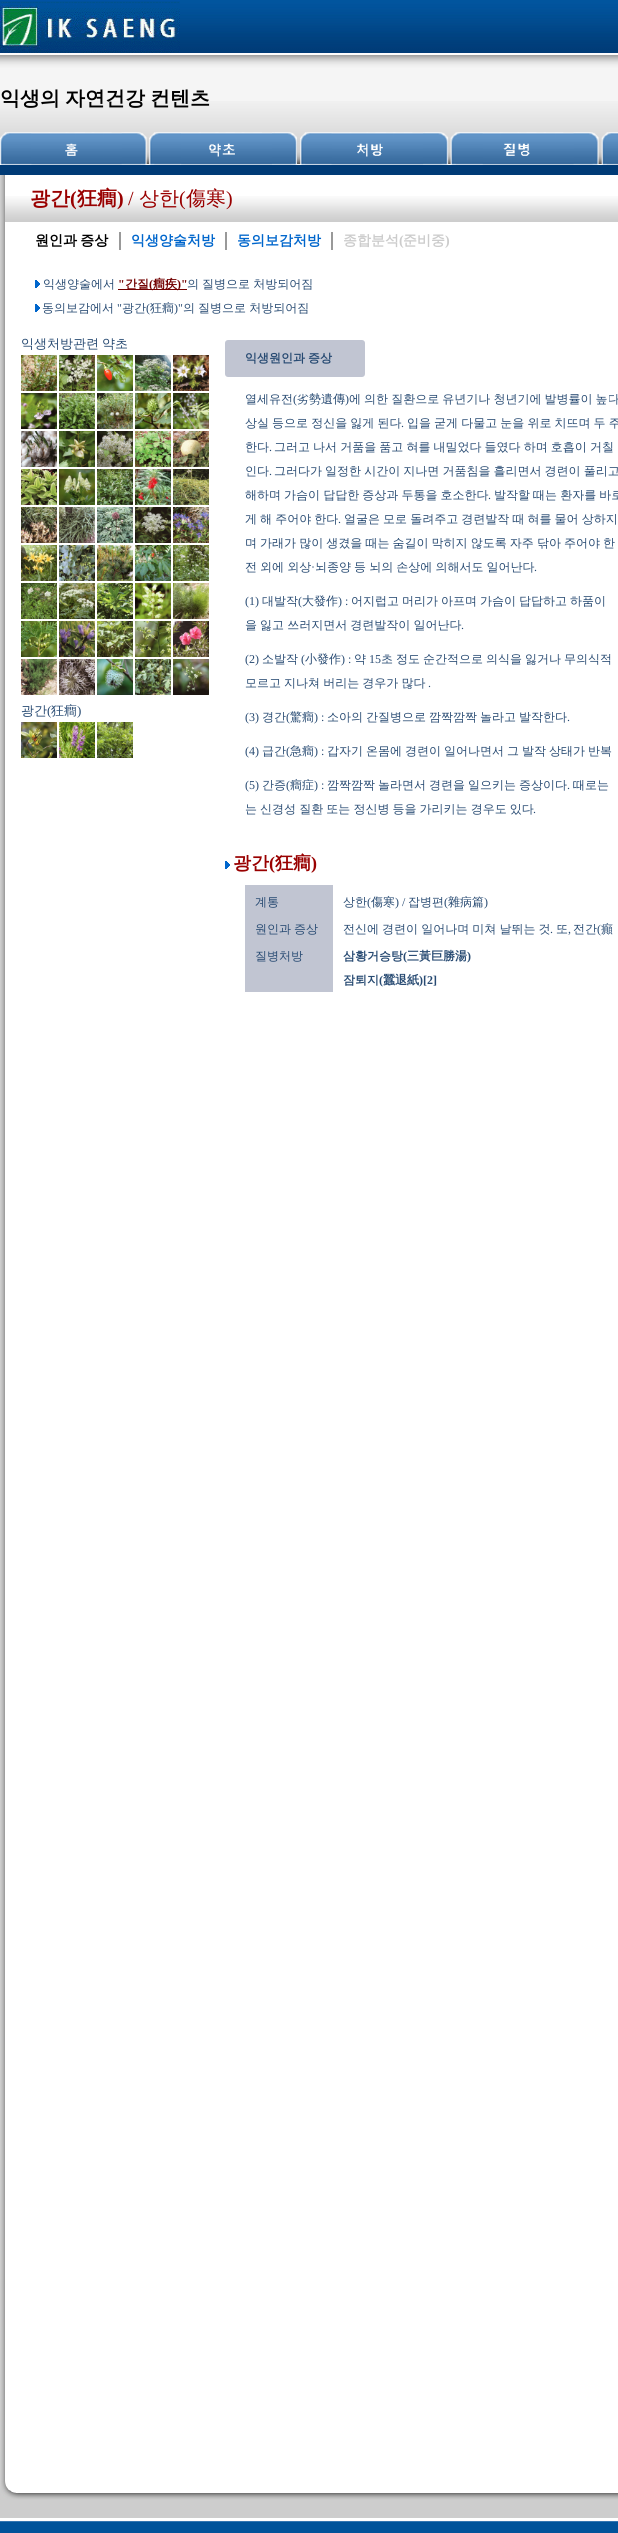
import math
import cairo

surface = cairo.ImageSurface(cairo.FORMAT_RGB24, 618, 2533)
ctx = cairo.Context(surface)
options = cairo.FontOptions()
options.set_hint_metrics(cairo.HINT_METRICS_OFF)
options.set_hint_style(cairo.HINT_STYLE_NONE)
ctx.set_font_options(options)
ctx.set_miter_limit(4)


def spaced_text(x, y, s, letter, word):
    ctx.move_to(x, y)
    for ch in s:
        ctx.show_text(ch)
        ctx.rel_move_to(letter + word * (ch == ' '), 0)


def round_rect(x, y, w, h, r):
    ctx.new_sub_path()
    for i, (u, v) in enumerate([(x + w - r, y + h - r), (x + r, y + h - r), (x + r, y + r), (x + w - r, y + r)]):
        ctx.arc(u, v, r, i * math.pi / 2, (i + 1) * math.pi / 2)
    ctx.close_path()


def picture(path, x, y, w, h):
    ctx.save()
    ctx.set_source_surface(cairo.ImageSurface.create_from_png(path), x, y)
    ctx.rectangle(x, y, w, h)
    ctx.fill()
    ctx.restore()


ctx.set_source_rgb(1, 1, 1)
ctx.paint()
picture("img1.png", 0, 0, 618, 55)
picture("img2.png", 0, 0, 180, 53)
picture("img3.png", 0, 55, 618, 46)
picture("img4.png", 0, 101, 618, 74)
ctx.select_font_face("WenQuanYi Zen Hei", cairo.FONT_SLANT_NORMAL, cairo.FONT_WEIGHT_BOLD)
ctx.set_font_size(20)
ctx.set_source_rgb(0, 0, 0)
spaced_text(0, 105, "익생의 자연건강 컨텐츠", 0, -1)
picture("img5.png", 0, 132, 147, 33)
picture("img6.png", 149, 132, 148, 33)
picture("img7.png", 300, 132, 148, 33)
picture("img8.png", 448, 132, 150, 33)
picture("img9.png", 598, 132, 20, 33)
ctx.set_source_rgb(0.804, 0.804, 0.804)
ctx.rectangle(0, 175, 1, 2343)
ctx.fill()
picture("img10.png", 1, 175, 617, 2306)
picture("img11.png", 1, 2481, 617, 37)
picture("img12.png", 5, 196, 613, 26)
ctx.set_source_rgb(0.6, 0, 0)
ctx.move_to(30, 205)
ctx.show_text("광간")
ctx.select_font_face("Liberation Serif", cairo.FONT_SLANT_NORMAL, cairo.FONT_WEIGHT_BOLD)
ctx.move_to(70, 205)
ctx.show_text("(")
ctx.select_font_face("WenQuanYi Zen Hei", cairo.FONT_SLANT_NORMAL, cairo.FONT_WEIGHT_BOLD)
ctx.move_to(77, 205)
ctx.show_text("狂癎")
ctx.select_font_face("Liberation Serif", cairo.FONT_SLANT_NORMAL, cairo.FONT_WEIGHT_BOLD)
ctx.move_to(117, 205)
ctx.show_text(")")
ctx.select_font_face("Liberation Serif")
ctx.move_to(128, 205)
ctx.show_text("/")
ctx.select_font_face("WenQuanYi Zen Hei Medium")
ctx.move_to(139, 205)
ctx.show_text("상한")
ctx.select_font_face("Liberation Serif")
ctx.move_to(179, 205)
ctx.show_text("(")
ctx.select_font_face("WenQuanYi Zen Hei Medium")
ctx.move_to(186, 205)
ctx.show_text("傷寒")
ctx.select_font_face("Liberation Serif")
ctx.move_to(226, 205)
ctx.show_text(")")
ctx.set_source_rgb(0.6, 0.6, 0.6)
ctx.rectangle(119, 232, 2, 18)
ctx.fill()
ctx.select_font_face("WenQuanYi Zen Hei", cairo.FONT_SLANT_NORMAL, cairo.FONT_WEIGHT_BOLD)
ctx.set_font_size(14)
ctx.set_source_rgb(0, 0, 0)
spaced_text(35, 245, "원인과 증상", 0, -1)
ctx.set_source_rgb(0.6, 0.6, 0.6)
ctx.rectangle(225, 232, 2, 18)
ctx.fill()
ctx.set_source_rgb(0, 0.4, 0.8)
ctx.move_to(131, 245)
ctx.show_text("익생양술처방")
ctx.set_source_rgb(0.6, 0.6, 0.6)
ctx.rectangle(331, 232, 2, 18)
ctx.fill()
ctx.set_source_rgb(0, 0.4, 0.8)
ctx.move_to(237, 245)
ctx.show_text("동의보감처방")
ctx.set_source_rgb(0.8, 0.8, 0.8)
ctx.move_to(343, 245)
ctx.show_text("종합분석")
ctx.select_font_face("Liberation Serif", cairo.FONT_SLANT_NORMAL, cairo.FONT_WEIGHT_BOLD)
ctx.move_to(399, 245)
ctx.show_text("(")
ctx.select_font_face("WenQuanYi Zen Hei", cairo.FONT_SLANT_NORMAL, cairo.FONT_WEIGHT_BOLD)
ctx.move_to(403, 245)
ctx.show_text("준비중")
ctx.select_font_face("Liberation Serif", cairo.FONT_SLANT_NORMAL, cairo.FONT_WEIGHT_BOLD)
ctx.move_to(445, 245)
ctx.show_text(")")
picture("img13.png", 35, 280, 5, 8)
ctx.select_font_face("WenQuanYi Zen Hei Medium")
ctx.set_font_size(12)
ctx.set_source_rgb(0.153, 0.29, 0.447)
ctx.move_to(43, 288)
ctx.show_text("익생양술에서")
ctx.select_font_face("Liberation Serif", cairo.FONT_SLANT_NORMAL, cairo.FONT_WEIGHT_BOLD)
ctx.set_source_rgb(0.447, 0, 0)
ctx.move_to(118, 288)
ctx.show_text("\"")
ctx.rectangle(118, 289, 69, 1)
ctx.fill()
ctx.select_font_face("WenQuanYi Zen Hei", cairo.FONT_SLANT_NORMAL, cairo.FONT_WEIGHT_BOLD)
ctx.move_to(125, 288)
ctx.show_text("간질")
ctx.select_font_face("Liberation Serif", cairo.FONT_SLANT_NORMAL, cairo.FONT_WEIGHT_BOLD)
ctx.move_to(149, 288)
ctx.show_text("(")
ctx.select_font_face("WenQuanYi Zen Hei", cairo.FONT_SLANT_NORMAL, cairo.FONT_WEIGHT_BOLD)
ctx.move_to(153, 288)
ctx.show_text("癎疾")
ctx.select_font_face("Liberation Serif", cairo.FONT_SLANT_NORMAL, cairo.FONT_WEIGHT_BOLD)
ctx.move_to(177, 288)
ctx.show_text(")\"")
ctx.select_font_face("WenQuanYi Zen Hei Medium")
ctx.set_source_rgb(0.153, 0.29, 0.447)
spaced_text(187, 288, "의 질병으로 처방되어짐", 0, -0.5)
picture("img13.png", 35, 304, 5, 8)
ctx.move_to(42, 312)
ctx.show_text("동의보감에서")
ctx.select_font_face("Liberation Serif")
ctx.move_to(117, 312)
ctx.show_text("\"")
ctx.select_font_face("WenQuanYi Zen Hei Medium")
ctx.move_to(122, 312)
ctx.show_text("광간")
ctx.select_font_face("Liberation Serif")
ctx.move_to(146, 312)
ctx.show_text("(")
ctx.select_font_face("WenQuanYi Zen Hei Medium")
ctx.move_to(150, 312)
ctx.show_text("狂癎")
ctx.select_font_face("Liberation Serif")
ctx.move_to(174, 312)
ctx.show_text(")\"")
ctx.select_font_face("WenQuanYi Zen Hei Medium")
spaced_text(183, 312, "의 질병으로 처방되어짐", 0, -0.5)
ctx.set_font_size(13)
spaced_text(21, 348, "익생처방관련 약초", 0, -1)
picture("img14.png", 21, 355, 36, 36)
picture("img15.png", 59, 355, 36, 36)
picture("img16.png", 97, 355, 36, 36)
picture("img17.png", 135, 355, 36, 36)
picture("img18.png", 173, 355, 36, 36)
picture("img19.png", 21, 393, 36, 36)
picture("img20.png", 59, 393, 36, 36)
picture("img21.png", 97, 393, 36, 36)
picture("img22.png", 135, 393, 36, 36)
picture("img23.png", 173, 393, 36, 36)
picture("img24.png", 21, 431, 36, 36)
picture("img25.png", 59, 431, 36, 36)
picture("img26.png", 97, 431, 36, 36)
picture("img27.png", 135, 431, 36, 36)
picture("img28.png", 173, 431, 36, 36)
picture("img29.png", 21, 469, 36, 36)
picture("img30.png", 59, 469, 36, 36)
picture("img31.png", 97, 469, 36, 36)
picture("img32.png", 135, 469, 36, 36)
picture("img33.png", 173, 469, 36, 36)
picture("img34.png", 21, 507, 36, 36)
picture("img35.png", 59, 507, 36, 36)
picture("img36.png", 97, 507, 36, 36)
picture("img37.png", 135, 507, 36, 36)
picture("img38.png", 173, 507, 36, 36)
picture("img39.png", 21, 545, 36, 36)
picture("img40.png", 59, 545, 36, 36)
picture("img41.png", 97, 545, 36, 36)
picture("img42.png", 135, 545, 36, 36)
picture("img43.png", 173, 545, 36, 36)
picture("img44.png", 21, 583, 36, 36)
picture("img45.png", 59, 583, 36, 36)
picture("img46.png", 97, 583, 36, 36)
picture("img47.png", 135, 583, 36, 36)
picture("img48.png", 173, 583, 36, 36)
picture("img49.png", 21, 621, 36, 36)
picture("img50.png", 59, 621, 36, 36)
picture("img51.png", 97, 621, 36, 36)
picture("img52.png", 135, 621, 36, 36)
picture("img53.png", 173, 621, 36, 36)
picture("img54.png", 21, 659, 36, 36)
picture("img55.png", 59, 659, 36, 36)
picture("img56.png", 97, 659, 36, 36)
picture("img57.png", 135, 659, 36, 36)
picture("img58.png", 173, 659, 36, 36)
ctx.move_to(21, 715)
ctx.show_text("광간")
ctx.select_font_face("Liberation Serif")
ctx.move_to(47, 715)
ctx.show_text("(")
ctx.select_font_face("WenQuanYi Zen Hei Medium")
ctx.move_to(51, 715)
ctx.show_text("狂癎")
ctx.select_font_face("Liberation Serif")
ctx.move_to(77, 715)
ctx.show_text(")")
picture("img59.png", 21, 722, 36, 36)
picture("img60.png", 59, 722, 36, 36)
picture("img61.png", 97, 722, 36, 36)
ctx.set_source_rgb(0.757, 0.773, 0.824)
round_rect(225, 340, 140, 37, 3)
ctx.fill()
ctx.select_font_face("WenQuanYi Zen Hei", cairo.FONT_SLANT_NORMAL, cairo.FONT_WEIGHT_BOLD)
ctx.set_font_size(12)
ctx.set_source_rgb(0.153, 0.29, 0.447)
spaced_text(245, 362, "익생원인과 증상", 0, -0.5)
ctx.select_font_face("WenQuanYi Zen Hei Medium")
ctx.move_to(245, 403)
ctx.show_text("열세유전")
ctx.select_font_face("Liberation Serif")
ctx.move_to(293, 403)
ctx.show_text("(")
ctx.select_font_face("WenQuanYi Zen Hei Medium")
ctx.move_to(297, 403)
ctx.show_text("劣勢遺傳")
ctx.select_font_face("Liberation Serif")
ctx.move_to(345, 403)
ctx.show_text(")")
ctx.select_font_face("WenQuanYi Zen Hei Medium")
spaced_text(349, 403, "에 의한 질환으로 유년기나 청년기에 발병률이 높다", 0, -0.5)
spaced_text(245, 427, "상실 등으로 정신을 잃게 된다", 0, -0.5)
ctx.select_font_face("Liberation Serif")
ctx.move_to(401, 427)
ctx.show_text(".")
ctx.select_font_face("WenQuanYi Zen Hei Medium")
spaced_text(407, 427, "입을 굳게 다물고 눈을 위로 치뜨며 두 주", 0, -0.5)
ctx.move_to(245, 451)
ctx.show_text("한다")
ctx.select_font_face("Liberation Serif")
ctx.move_to(269, 451)
ctx.show_text(".")
ctx.select_font_face("WenQuanYi Zen Hei Medium")
spaced_text(274, 451, "그러고 나서 거품을 품고 혀를 내밀었다 들였다 하며 호흡이 거칠", 0, -0.5)
ctx.move_to(245, 475)
ctx.show_text("인다")
ctx.select_font_face("Liberation Serif")
ctx.move_to(269, 475)
ctx.show_text(".")
ctx.select_font_face("WenQuanYi Zen Hei Medium")
spaced_text(274, 475, "그러다가 일정한 시간이 지나면 거품침을 흘리면서 경련이 풀리고", 0, -0.5)
spaced_text(245, 499, "해하며 가슴이 답답한 증상과 두통을 호소한다", 0, -0.5)
ctx.select_font_face("Liberation Serif")
ctx.move_to(488, 499)
ctx.show_text(".")
ctx.select_font_face("WenQuanYi Zen Hei Medium")
spaced_text(494, 499, "발작할 때는 환자를 바로", 0, -0.5)
spaced_text(245, 523, "게 해 주어야 한다", 0, -0.5)
ctx.select_font_face("Liberation Serif")
ctx.move_to(338, 523)
ctx.show_text(".")
ctx.select_font_face("WenQuanYi Zen Hei Medium")
spaced_text(344, 523, "얼굴은 모로 돌려주고 경련발작 때 혀를 물어 상하지", 0, -0.5)
spaced_text(245, 547, "며 가래가 많이 생겼을 때는 숨길이 막히지 않도록 자주 닦아 주어야 한", 0, -0.5)
spaced_text(245, 571, "전 외에 외상", 0, -0.5)
ctx.select_font_face("Liberation Serif")
ctx.move_to(311, 571)
ctx.show_text("·")
ctx.select_font_face("WenQuanYi Zen Hei Medium")
spaced_text(315, 571, "뇌종양 등 뇌의 손상에 의해서도 일어난다", 0, -0.5)
ctx.select_font_face("Liberation Serif")
ctx.move_to(534, 571)
ctx.show_text(".")
ctx.move_to(245, 605)
ctx.show_text("(1)")
ctx.select_font_face("WenQuanYi Zen Hei Medium")
ctx.move_to(262, 605)
ctx.show_text("대발작")
ctx.select_font_face("Liberation Serif")
ctx.move_to(298, 605)
ctx.show_text("(")
ctx.select_font_face("WenQuanYi Zen Hei Medium")
ctx.move_to(302, 605)
ctx.show_text("大發作")
ctx.select_font_face("Liberation Serif")
ctx.move_to(338, 605)
ctx.show_text(") :")
ctx.select_font_face("WenQuanYi Zen Hei Medium")
ctx.move_to(351, 605)
ctx.show_text("어지럽고")
ctx.move_to(402, 605)
ctx.show_text("머리가")
ctx.move_to(441, 605)
ctx.show_text("아프며")
ctx.move_to(480, 605)
ctx.show_text("가슴이")
ctx.move_to(519, 605)
ctx.show_text("답답하고")
ctx.move_to(570, 605)
ctx.show_text("하품이")
spaced_text(245, 629, "을 잃고 쓰러지면서 경련발작이 일어난다", 0, -0.5)
ctx.select_font_face("Liberation Serif")
ctx.move_to(461, 629)
ctx.show_text(".")
ctx.move_to(245, 663)
ctx.show_text("(2)")
ctx.select_font_face("WenQuanYi Zen Hei Medium")
ctx.move_to(262, 663)
ctx.show_text("소발작")
ctx.select_font_face("Liberation Serif")
ctx.move_to(301, 663)
ctx.show_text("(")
ctx.select_font_face("WenQuanYi Zen Hei Medium")
ctx.move_to(305, 663)
ctx.show_text("小發作")
ctx.select_font_face("Liberation Serif")
ctx.move_to(341, 663)
ctx.show_text(") :")
ctx.select_font_face("WenQuanYi Zen Hei Medium")
ctx.move_to(354, 663)
ctx.show_text("약")
ctx.select_font_face("Liberation Serif")
ctx.move_to(369, 663)
ctx.show_text("15")
ctx.select_font_face("WenQuanYi Zen Hei Medium")
ctx.move_to(381, 663)
ctx.show_text("초")
ctx.move_to(396, 663)
ctx.show_text("정도")
ctx.move_to(423, 663)
ctx.show_text("순간적으로")
ctx.move_to(486, 663)
ctx.show_text("의식을")
ctx.move_to(525, 663)
ctx.show_text("잃거나")
ctx.move_to(564, 663)
ctx.show_text("무의식적")
spaced_text(245, 687, "모르고 지나쳐 버리는 경우가 많다", 0, -0.5)
ctx.select_font_face("Liberation Serif")
ctx.move_to(428, 687)
ctx.show_text(".")
ctx.move_to(245, 721)
ctx.show_text("(3)")
ctx.select_font_face("WenQuanYi Zen Hei Medium")
ctx.move_to(262, 721)
ctx.show_text("경간")
ctx.select_font_face("Liberation Serif")
ctx.move_to(286, 721)
ctx.show_text("(")
ctx.select_font_face("WenQuanYi Zen Hei Medium")
ctx.move_to(290, 721)
ctx.show_text("驚癎")
ctx.select_font_face("Liberation Serif")
ctx.move_to(314, 721)
ctx.show_text(") :")
ctx.select_font_face("WenQuanYi Zen Hei Medium")
ctx.move_to(327, 721)
ctx.show_text("소아의")
ctx.move_to(366, 721)
ctx.show_text("간질병으로")
ctx.move_to(429, 721)
ctx.show_text("깜짝깜짝")
ctx.move_to(480, 721)
ctx.show_text("놀라고")
ctx.move_to(519, 721)
ctx.show_text("발작한다")
ctx.select_font_face("Liberation Serif")
ctx.move_to(567, 721)
ctx.show_text(".")
ctx.move_to(245, 755)
ctx.show_text("(4)")
ctx.select_font_face("WenQuanYi Zen Hei Medium")
ctx.move_to(262, 755)
ctx.show_text("급간")
ctx.select_font_face("Liberation Serif")
ctx.move_to(286, 755)
ctx.show_text("(")
ctx.select_font_face("WenQuanYi Zen Hei Medium")
ctx.move_to(290, 755)
ctx.show_text("急癎")
ctx.select_font_face("Liberation Serif")
ctx.move_to(314, 755)
ctx.show_text(") :")
ctx.select_font_face("WenQuanYi Zen Hei Medium")
ctx.move_to(327, 755)
ctx.show_text("갑자기")
ctx.move_to(366, 755)
ctx.show_text("온몸에")
ctx.move_to(405, 755)
ctx.show_text("경련이")
ctx.move_to(444, 755)
ctx.show_text("일어나면서")
ctx.move_to(507, 755)
ctx.show_text("그")
ctx.move_to(522, 755)
ctx.show_text("발작")
ctx.move_to(549, 755)
ctx.show_text("상태가")
ctx.move_to(588, 755)
ctx.show_text("반복")
ctx.select_font_face("Liberation Serif")
ctx.move_to(245, 789)
ctx.show_text("(5)")
ctx.select_font_face("WenQuanYi Zen Hei Medium")
ctx.move_to(262, 789)
ctx.show_text("간증")
ctx.select_font_face("Liberation Serif")
ctx.move_to(286, 789)
ctx.show_text("(")
ctx.select_font_face("WenQuanYi Zen Hei Medium")
ctx.move_to(290, 789)
ctx.show_text("癎症")
ctx.select_font_face("Liberation Serif")
ctx.move_to(314, 789)
ctx.show_text(") :")
ctx.select_font_face("WenQuanYi Zen Hei Medium")
ctx.move_to(327, 789)
ctx.show_text("깜짝깜짝")
ctx.move_to(378, 789)
ctx.show_text("놀라면서")
ctx.move_to(429, 789)
ctx.show_text("경련을")
ctx.move_to(468, 789)
ctx.show_text("일으키는")
ctx.move_to(519, 789)
ctx.show_text("증상이다")
ctx.select_font_face("Liberation Serif")
ctx.move_to(567, 789)
ctx.show_text(".")
ctx.select_font_face("WenQuanYi Zen Hei Medium")
ctx.move_to(573, 789)
ctx.show_text("때로는")
spaced_text(245, 813, "는 신경성 질환 또는 정신병 등을 가리키는 경우도 있다", 0, -0.5)
ctx.select_font_face("Liberation Serif")
ctx.move_to(533, 813)
ctx.show_text(".")
picture("img13.png", 225, 861, 5, 8)
ctx.select_font_face("WenQuanYi Zen Hei", cairo.FONT_SLANT_NORMAL, cairo.FONT_WEIGHT_BOLD)
ctx.set_font_size(18)
ctx.set_source_rgb(0.6, 0, 0)
ctx.move_to(233, 869)
ctx.show_text("광간")
ctx.select_font_face("Liberation Serif", cairo.FONT_SLANT_NORMAL, cairo.FONT_WEIGHT_BOLD)
ctx.move_to(269, 869)
ctx.show_text("(")
ctx.select_font_face("WenQuanYi Zen Hei", cairo.FONT_SLANT_NORMAL, cairo.FONT_WEIGHT_BOLD)
ctx.move_to(275, 869)
ctx.show_text("狂癎")
ctx.select_font_face("Liberation Serif", cairo.FONT_SLANT_NORMAL, cairo.FONT_WEIGHT_BOLD)
ctx.move_to(311, 869)
ctx.show_text(")")
ctx.set_source_rgb(0.757, 0.773, 0.824)
ctx.rectangle(245, 885, 88, 107)
ctx.fill()
ctx.select_font_face("WenQuanYi Zen Hei Medium")
ctx.set_font_size(12)
ctx.set_source_rgb(0.153, 0.29, 0.447)
ctx.move_to(255, 906)
ctx.show_text("계통")
ctx.move_to(343, 906)
ctx.show_text("상한")
ctx.select_font_face("Liberation Serif")
ctx.move_to(367, 906)
ctx.show_text("(")
ctx.select_font_face("WenQuanYi Zen Hei Medium")
ctx.move_to(371, 906)
ctx.show_text("傷寒")
ctx.select_font_face("Liberation Serif")
ctx.move_to(395, 906)
ctx.show_text(") /")
ctx.select_font_face("WenQuanYi Zen Hei Medium")
ctx.move_to(408, 906)
ctx.show_text("잡병편")
ctx.select_font_face("Liberation Serif")
ctx.move_to(444, 906)
ctx.show_text("(")
ctx.select_font_face("WenQuanYi Zen Hei Medium")
ctx.move_to(448, 906)
ctx.show_text("雜病篇")
ctx.select_font_face("Liberation Serif")
ctx.move_to(484, 906)
ctx.show_text(")")
ctx.select_font_face("WenQuanYi Zen Hei Medium")
spaced_text(255, 933, "원인과 증상", 0, -0.5)
spaced_text(343, 933, "전신에 경련이 일어나며 미쳐 날뛰는 것", 0, -0.5)
ctx.select_font_face("Liberation Serif")
ctx.move_to(550, 933)
ctx.show_text(".")
ctx.select_font_face("WenQuanYi Zen Hei Medium")
ctx.move_to(556, 933)
ctx.show_text("또")
ctx.select_font_face("Liberation Serif")
ctx.move_to(568, 933)
ctx.show_text(",")
ctx.select_font_face("WenQuanYi Zen Hei Medium")
ctx.move_to(573, 933)
ctx.show_text("전간")
ctx.select_font_face("Liberation Serif")
ctx.move_to(597, 933)
ctx.show_text("(")
ctx.select_font_face("WenQuanYi Zen Hei Medium")
ctx.move_to(601, 933)
ctx.show_text("癲")
ctx.move_to(255, 960)
ctx.show_text("질병처방")
ctx.select_font_face("WenQuanYi Zen Hei", cairo.FONT_SLANT_NORMAL, cairo.FONT_WEIGHT_BOLD)
ctx.move_to(343, 960)
ctx.show_text("삼황거승탕")
ctx.select_font_face("Liberation Serif", cairo.FONT_SLANT_NORMAL, cairo.FONT_WEIGHT_BOLD)
ctx.move_to(403, 960)
ctx.show_text("(")
ctx.select_font_face("WenQuanYi Zen Hei", cairo.FONT_SLANT_NORMAL, cairo.FONT_WEIGHT_BOLD)
ctx.move_to(407, 960)
ctx.show_text("三黃巨勝湯")
ctx.select_font_face("Liberation Serif", cairo.FONT_SLANT_NORMAL, cairo.FONT_WEIGHT_BOLD)
ctx.move_to(467, 960)
ctx.show_text(")")
ctx.select_font_face("WenQuanYi Zen Hei", cairo.FONT_SLANT_NORMAL, cairo.FONT_WEIGHT_BOLD)
ctx.move_to(343, 984)
ctx.show_text("잠퇴지")
ctx.select_font_face("Liberation Serif", cairo.FONT_SLANT_NORMAL, cairo.FONT_WEIGHT_BOLD)
ctx.move_to(379, 984)
ctx.show_text("(")
ctx.select_font_face("WenQuanYi Zen Hei", cairo.FONT_SLANT_NORMAL, cairo.FONT_WEIGHT_BOLD)
ctx.move_to(383, 984)
ctx.show_text("蠶退紙")
ctx.select_font_face("Liberation Serif", cairo.FONT_SLANT_NORMAL, cairo.FONT_WEIGHT_BOLD)
ctx.move_to(419, 984)
ctx.show_text(")[2]")
picture("img62.png", 0, 2520, 618, 13)
surface.write_to_png("page.png")
